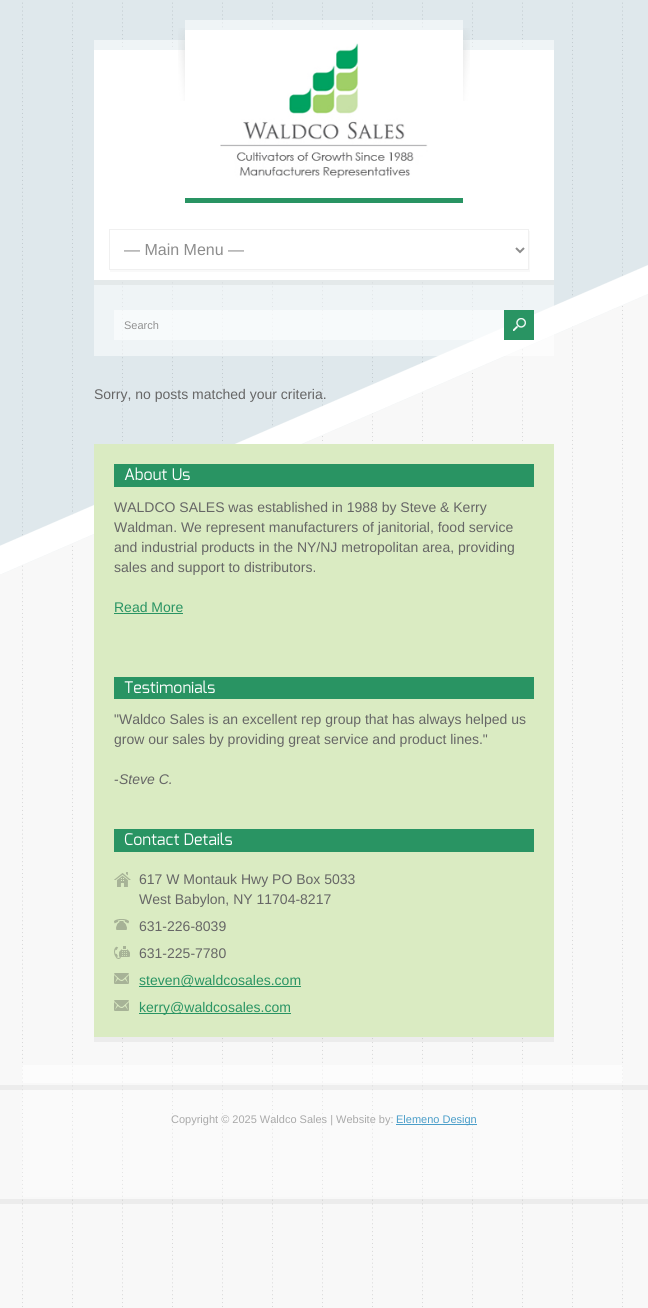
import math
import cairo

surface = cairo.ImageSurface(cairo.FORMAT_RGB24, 648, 1308)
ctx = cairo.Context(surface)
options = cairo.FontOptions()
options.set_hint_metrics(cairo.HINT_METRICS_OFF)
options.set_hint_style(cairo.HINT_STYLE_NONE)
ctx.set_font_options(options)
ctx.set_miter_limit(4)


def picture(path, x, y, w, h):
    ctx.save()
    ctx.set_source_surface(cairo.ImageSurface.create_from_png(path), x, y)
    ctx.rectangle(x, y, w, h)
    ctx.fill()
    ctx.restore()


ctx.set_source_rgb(1, 1, 1)
ctx.paint()
picture("img1.png", 0, 0, 648, 1308)
picture("img2.png", 0, 0, 648, 574)
ctx.set_source_rgba(1, 1, 1, 0.5)
ctx.rectangle(94, 40, 460, 10)
ctx.fill()
ctx.set_source_rgb(1, 1, 1)
ctx.rectangle(94, 50, 460, 230)
ctx.fill()
picture("img3.png", 178, 28, 7, 73)
ctx.set_source_rgb(0.161, 0.58, 0.388)
ctx.rectangle(185, 198, 278, 5)
ctx.fill()
ctx.set_source_rgba(1, 1, 1, 0.5)
ctx.rectangle(185, 20, 278, 10)
ctx.fill()
ctx.set_source_rgb(1, 1, 1)
ctx.rectangle(185, 30, 278, 20)
ctx.fill()
picture("img4.png", 220, 43, 208, 135)
picture("img5.png", 463, 28, 7, 73)
ctx.set_source_rgb(0.976, 0.976, 0.976)
ctx.new_path()
ctx.move_to(110, 270)
ctx.line_to(110, 272)
ctx.line_to(530, 272)
ctx.line_to(530, 231)
ctx.line_to(529, 231)
ctx.line_to(529, 270)
ctx.close_path()
ctx.fill()
ctx.rectangle(109.5, 229.5, 419, 40)
ctx.set_source_rgb(0.941, 0.941, 0.941)
ctx.set_line_width(1)
ctx.stroke()
ctx.new_path()
ctx.move_to(516, 248)
ctx.line_to(520, 252)
ctx.line_to(524, 248)
ctx.set_source_rgb(0.549, 0.549, 0.549)
ctx.set_line_width(2)
ctx.stroke()
ctx.select_font_face("Liberation Sans")
ctx.set_font_size(16)
ctx.move_to(124, 255)
ctx.show_text("— Main Menu —")
ctx.set_source_rgba(1, 1, 1, 0.5)
ctx.rectangle(94, 280, 460, 76)
ctx.fill()
ctx.set_source_rgba(0, 0, 0, 0.05)
ctx.rectangle(94, 280, 460, 5)
ctx.fill()
ctx.set_source_rgba(1, 1, 1, 0.5)
ctx.rectangle(114, 310, 390, 30)
ctx.fill()
ctx.set_font_size(11)
ctx.set_source_rgb(0.573, 0.573, 0.573)
ctx.move_to(124, 329)
ctx.show_text("Search")
ctx.set_source_rgb(0.161, 0.58, 0.388)
ctx.rectangle(504, 310, 30, 30)
ctx.fill()
picture("img6.png", 513, 318, 13, 13)
ctx.set_font_size(14)
ctx.set_source_rgb(0.4, 0.4, 0.4)
ctx.move_to(94, 399)
ctx.show_text("Sorry, no posts matched your criteria.")
ctx.set_source_rgb(0.855, 0.918, 0.761)
ctx.rectangle(94, 444, 460, 593)
ctx.fill()
ctx.set_source_rgb(0.161, 0.58, 0.388)
ctx.rectangle(114, 464, 420, 23)
ctx.fill()
ctx.select_font_face("Exo")
ctx.set_font_size(16)
ctx.set_source_rgb(1, 1, 1)
ctx.move_to(124, 480)
ctx.show_text("About Us")
ctx.select_font_face("Liberation Sans")
ctx.set_font_size(14)
ctx.set_source_rgb(0.4, 0.4, 0.4)
ctx.move_to(114, 512)
ctx.show_text("WALDCO SALES was established in 1988 by Steve & Kerry")
ctx.move_to(114, 532)
ctx.show_text("Waldman. We represent manufacturers of janitorial, food service")
ctx.move_to(114, 552)
ctx.show_text("and industrial products in the NY/NJ metropolitan area, providing")
ctx.move_to(114, 572)
ctx.show_text("sales and support to distributors.")
ctx.set_source_rgb(0.161, 0.58, 0.388)
ctx.move_to(114, 612)
ctx.show_text("Read More")
ctx.rectangle(114, 613, 69, 1)
ctx.fill()
ctx.rectangle(114, 677, 420, 22)
ctx.fill()
ctx.select_font_face("Exo")
ctx.set_font_size(16)
ctx.set_source_rgb(1, 1, 1)
ctx.move_to(124, 693)
ctx.show_text("Testimonials")
ctx.select_font_face("Liberation Sans")
ctx.set_font_size(14)
ctx.set_source_rgb(0.4, 0.4, 0.4)
ctx.move_to(114, 724)
ctx.show_text("\"Waldco Sales is an excellent rep group that has always helped us")
ctx.move_to(114, 744)
ctx.show_text("grow our sales by providing great service and product lines.\"")
ctx.move_to(114, 784)
ctx.show_text("-")
ctx.select_font_face("Liberation Sans", cairo.FONT_SLANT_ITALIC)
ctx.move_to(119, 784)
ctx.show_text("Steve C.")
ctx.set_source_rgba(0, 0, 0, 0.05)
ctx.rectangle(94, 1037, 460, 5)
ctx.fill()
ctx.set_source_rgb(0.161, 0.58, 0.388)
ctx.rectangle(114, 829, 420, 23)
ctx.fill()
ctx.select_font_face("Exo")
ctx.set_font_size(16)
ctx.set_source_rgb(1, 1, 1)
ctx.move_to(124, 845)
ctx.show_text("Contact Details")
picture("img7.png", 114, 872, 17, 15)
ctx.select_font_face("Liberation Sans")
ctx.set_font_size(14)
ctx.set_source_rgb(0.4, 0.4, 0.4)
ctx.move_to(139, 884)
ctx.show_text("617 W Montauk Hwy PO Box 5033")
ctx.move_to(139, 904)
ctx.show_text("West Babylon, NY 11704-8217")
picture("img8.png", 114, 919, 15, 11)
ctx.move_to(139, 931)
ctx.show_text("631-226-8039")
picture("img9.png", 114, 946, 16, 13)
ctx.move_to(139, 958)
ctx.show_text("631-225-7780")
picture("img10.png", 114, 973, 15, 11)
ctx.set_source_rgb(0.161, 0.58, 0.388)
ctx.rectangle(139, 986, 162, 1)
ctx.fill()
ctx.move_to(139, 985)
ctx.show_text("steven@waldcosales.com")
picture("img10.png", 114, 1000, 15, 11)
ctx.rectangle(139, 1013, 152, 1)
ctx.fill()
ctx.move_to(139, 1012)
ctx.show_text("kerry@waldcosales.com")
ctx.set_source_rgba(1, 1, 1, 0.5)
ctx.rectangle(22, 1065, 601, 18)
ctx.fill()
ctx.set_source_rgba(0, 0, 0, 0.05)
ctx.rectangle(0, 1199, 648, 5)
ctx.fill()
ctx.set_source_rgba(1, 1, 1, 0.3)
ctx.rectangle(22, 1085, 601, 112)
ctx.fill()
ctx.set_source_rgba(0, 0, 0, 0.05)
ctx.rectangle(0, 1085, 648, 5)
ctx.fill()
ctx.set_font_size(11)
ctx.set_source_rgb(0.663, 0.663, 0.663)
ctx.move_to(171, 1123)
ctx.show_text("Copyright © 2025 Waldco Sales | Website by:")
ctx.set_source_rgb(0.294, 0.62, 0.788)
ctx.rectangle(396, 1124, 81, 1)
ctx.fill()
ctx.move_to(396, 1123)
ctx.show_text("Elemeno Design")
surface.write_to_png("page.png")
